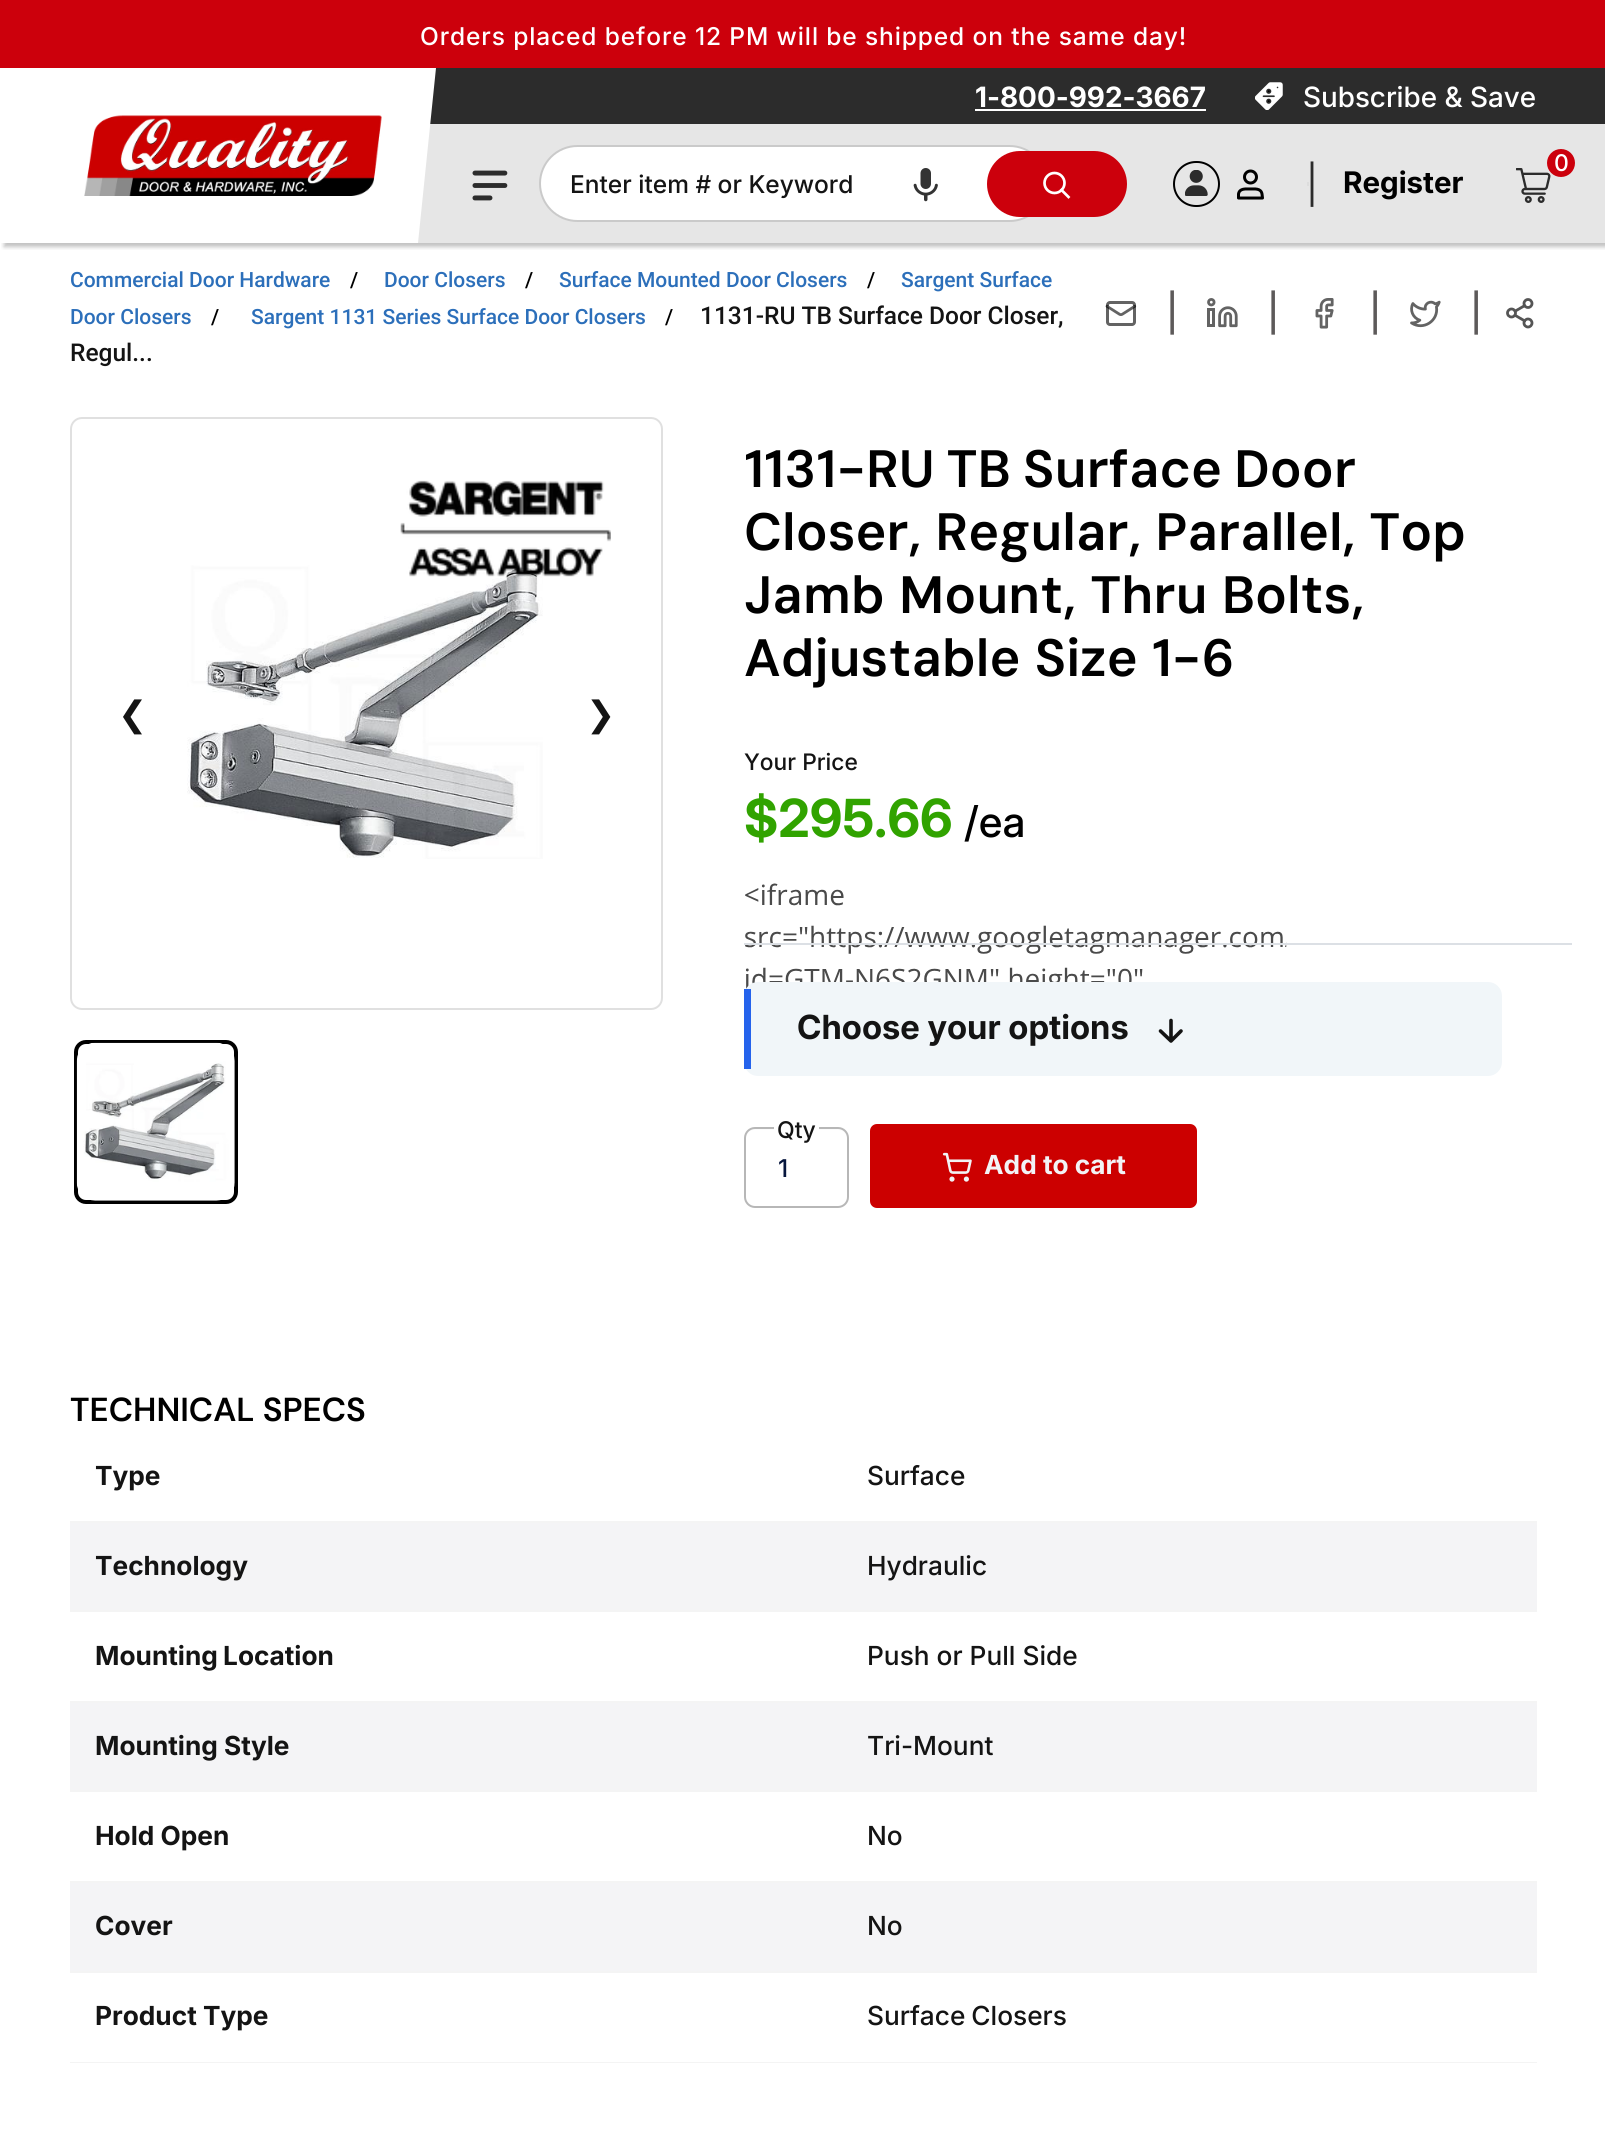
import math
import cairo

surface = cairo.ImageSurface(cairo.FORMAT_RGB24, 1605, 2138)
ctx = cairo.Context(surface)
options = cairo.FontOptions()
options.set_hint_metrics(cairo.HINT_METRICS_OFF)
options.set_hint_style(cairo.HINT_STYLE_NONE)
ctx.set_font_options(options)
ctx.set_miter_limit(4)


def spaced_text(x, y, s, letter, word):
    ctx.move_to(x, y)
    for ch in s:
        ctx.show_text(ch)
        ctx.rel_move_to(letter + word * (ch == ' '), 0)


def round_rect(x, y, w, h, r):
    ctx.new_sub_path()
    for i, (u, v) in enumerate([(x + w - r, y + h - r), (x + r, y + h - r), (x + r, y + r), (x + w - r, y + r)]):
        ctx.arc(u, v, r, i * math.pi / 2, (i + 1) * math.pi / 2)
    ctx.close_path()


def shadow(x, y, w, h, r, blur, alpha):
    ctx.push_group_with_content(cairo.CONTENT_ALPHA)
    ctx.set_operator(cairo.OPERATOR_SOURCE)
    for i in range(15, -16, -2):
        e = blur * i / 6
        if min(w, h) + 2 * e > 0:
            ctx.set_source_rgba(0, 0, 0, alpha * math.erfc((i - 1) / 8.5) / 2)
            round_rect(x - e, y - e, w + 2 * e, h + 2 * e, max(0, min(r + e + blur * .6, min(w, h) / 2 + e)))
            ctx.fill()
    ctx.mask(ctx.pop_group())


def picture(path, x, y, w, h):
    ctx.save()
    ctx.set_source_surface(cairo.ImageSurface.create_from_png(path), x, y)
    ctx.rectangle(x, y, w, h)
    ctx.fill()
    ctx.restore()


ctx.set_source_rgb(1, 1, 1)
ctx.paint()
ctx.set_source_rgb(0.8, 0, 0.047)
ctx.rectangle(0, 0, 1605, 68)
ctx.fill()
ctx.select_font_face("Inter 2 Medium")
ctx.set_font_size(24.5)
ctx.set_source_rgb(1, 1, 1)
spaced_text(420, 45, "Orders placed before 12 PM will be shipped on the same day!", 0.88, 0)
ctx.set_source_rgb(0.902, 0.902, 0.902)
ctx.rectangle(418, 124, 1187, 119)
ctx.fill()
ctx.save()
ctx.rectangle(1, 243, 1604, 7)
ctx.clip()
ctx.set_source_rgb(0.322, 0.322, 0.322)
shadow(4, 72, 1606, 175, 0, 2, 0.35)
ctx.restore()
picture("img1.png", 84, 115, 298, 81)
ctx.set_source_rgb(0.173, 0.173, 0.173)
ctx.rectangle(430, 68, 1175, 56)
ctx.fill()
ctx.set_source_rgb(1, 1, 1)
ctx.new_path()
ctx.move_to(401, 68)
ctx.line_to(436, 68)
ctx.line_to(418, 243)
ctx.line_to(401, 243)
ctx.close_path()
ctx.fill()
ctx.select_font_face("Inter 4", cairo.FONT_SLANT_NORMAL, cairo.FONT_WEIGHT_BOLD)
ctx.set_font_size(28)
ctx.move_to(975, 107)
ctx.show_text("1-800-992-3667")
ctx.rectangle(975, 109, 231, 2)
ctx.fill()
picture("img2.png", 1255, 82, 28, 28)
ctx.select_font_face("Inter 4 Medium")
ctx.move_to(1303, 107)
ctx.show_text("Subscribe & Save")
picture("img3.png", 472, 170, 36, 31)
round_rect(540, 146, 507, 75, 37.5)
ctx.fill_preserve()
ctx.set_source_rgb(0.792, 0.792, 0.792)
ctx.stroke()
ctx.select_font_face("Inter 2 Medium")
ctx.set_font_size(24.5)
ctx.set_source_rgb(0.082, 0.082, 0.082)
ctx.move_to(570, 193)
ctx.show_text("Enter item # or Keyword")
picture("img4.png", 913, 168, 25, 34)
ctx.set_source_rgb(0.8, 0, 0.047)
round_rect(987, 151, 140, 66, 33)
ctx.fill()
ctx.new_path()
ctx.move_to(1068.5, 197)
ctx.line_to(1061.5, 190)
ctx.set_source_rgb(1, 1, 1)
ctx.set_line_width(2.7)
ctx.set_line_cap(cairo.LINE_CAP_SQUARE)
ctx.stroke()
ctx.arc(1054.5, 183, 10, 0, 2 * math.pi)
ctx.set_line_cap(cairo.LINE_CAP_BUTT)
ctx.stroke()
round_rect(1174, 162, 45, 44, 22)
ctx.set_source_rgb(0, 0, 0)
ctx.set_line_width(2)
ctx.stroke()
picture("img5.png", 1185, 170, 23, 26)
ctx.new_path()
ctx.move_to(1262.5, 198)
ctx.line_to(1262, 194)
ctx.curve_to(1261, 188, 1254.5, 189, 1250.5, 189)
ctx.curve_to(1246, 189, 1239.5, 188, 1238.5, 194)
ctx.line_to(1238.5, 198)
ctx.close_path()
ctx.set_line_width(3)
ctx.set_line_cap(cairo.LINE_CAP_ROUND)
ctx.set_line_join(cairo.LINE_JOIN_ROUND)
ctx.stroke()
ctx.arc(1250.5, 177, 6, 0, 2 * math.pi)
ctx.set_line_cap(cairo.LINE_CAP_BUTT)
ctx.set_line_join(cairo.LINE_JOIN_MITER)
ctx.stroke()
ctx.set_source_rgb(0.867, 0.867, 0.867)
ctx.rectangle(1307, 182, 2, 4)
ctx.fill()
ctx.select_font_face("Inter")
ctx.set_font_size(38)
ctx.set_source_rgb(0.173, 0.173, 0.173)
ctx.move_to(1306, 198)
ctx.show_text("|")
ctx.select_font_face("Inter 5", cairo.FONT_SLANT_NORMAL, cairo.FONT_WEIGHT_BOLD)
ctx.set_font_size(29.75)
ctx.set_source_rgb(0, 0, 0)
ctx.move_to(1343, 193)
ctx.show_text("Register")
picture("img6.png", 1516, 168, 35, 35)
ctx.set_source_rgb(0.8, 0, 0.047)
ctx.arc(1561, 163, 14, 0, 2 * math.pi)
ctx.fill()
ctx.select_font_face("Inter 2 Medium")
ctx.set_font_size(23)
ctx.set_source_rgb(1, 1, 1)
ctx.move_to(1554, 171)
ctx.show_text("0")
ctx.select_font_face("Roboto Medium")
ctx.set_font_size(21)
ctx.set_source_rgb(0.173, 0.435, 0.729)
ctx.move_to(70, 287)
ctx.show_text("Commercial Door Hardware")
ctx.set_source_rgb(0, 0, 0)
ctx.move_to(350, 287)
ctx.show_text("/")
ctx.set_source_rgb(0.173, 0.435, 0.729)
ctx.move_to(384, 287)
ctx.show_text("Door Closers")
ctx.set_source_rgb(0, 0, 0)
ctx.move_to(525, 287)
ctx.show_text("/")
ctx.set_source_rgb(0.173, 0.435, 0.729)
ctx.move_to(559, 287)
ctx.show_text("Surface Mounted Door Closers")
ctx.set_source_rgb(0, 0, 0)
ctx.move_to(867, 287)
ctx.show_text("/")
ctx.set_source_rgb(0.173, 0.435, 0.729)
ctx.move_to(901, 287)
ctx.show_text("Sargent Surface")
ctx.move_to(70, 324)
ctx.show_text("Door Closers")
ctx.set_source_rgb(0, 0, 0)
ctx.move_to(211, 324)
ctx.show_text("/")
ctx.set_source_rgb(0.173, 0.435, 0.729)
ctx.move_to(251, 324)
ctx.show_text("Sargent 1131 Series Surface Door Closers")
ctx.set_source_rgb(0, 0, 0)
ctx.move_to(665, 324)
ctx.show_text("/")
ctx.set_font_size(24.5)
ctx.set_source_rgb(0.082, 0.082, 0.082)
ctx.move_to(700, 324)
ctx.show_text("1131-RU TB Surface Door Closer,")
ctx.move_to(70, 361)
ctx.show_text("Regul...")
picture("img7.png", 1105, 301, 32, 25)
ctx.select_font_face("Inter Medium")
ctx.set_font_size(37)
ctx.set_source_rgb(0.365, 0.353, 0.353)
ctx.move_to(1166, 326)
ctx.show_text("|")
picture("img8.png", 1207, 298, 31, 30)
ctx.move_to(1267, 326)
ctx.show_text("|")
picture("img9.png", 1315, 298, 19, 31)
ctx.move_to(1369, 326)
ctx.show_text("|")
picture("img10.png", 1410, 300, 31, 28)
ctx.move_to(1470, 326)
ctx.show_text("|")
picture("img11.png", 1506, 298, 28, 31)
round_rect(71, 418, 591, 591, 11)
ctx.set_source_rgb(0.878, 0.878, 0.878)
ctx.set_line_width(2)
ctx.stroke()
picture("img13.png", 187, 565, 356, 294)
picture("img12.png", 400, 480, 211, 97)
ctx.select_font_face("DejaVu Sans")
ctx.set_font_size(35)
ctx.set_source_rgb(0.082, 0.082, 0.082)
ctx.move_to(118, 726)
ctx.show_text("❮")
ctx.move_to(586, 726)
ctx.show_text("❯")
round_rect(76, 1042, 160, 160, 10)
ctx.set_source_rgb(0, 0, 0)
ctx.set_line_width(4)
ctx.stroke()
picture("img14.png", 76, 1042, 159, 159)
ctx.select_font_face("DM Sans SemiBold")
ctx.set_font_size(52.5)
spaced_text(744, 487, "1131-RU TB Surface Door", 0, -1)
spaced_text(744, 550, "Closer, Regular, Parallel, Top", 0, 1)
spaced_text(744, 613, "Jamb Mount, Thru Bolts,", 0, 1)
spaced_text(744, 676, "Adjustable Size 1-6", 0, 1)
ctx.select_font_face("Inter 2 Medium")
ctx.set_font_size(22.75)
ctx.set_source_rgb(0.082, 0.082, 0.082)
ctx.move_to(744, 770)
ctx.show_text("Your Price")
ctx.select_font_face("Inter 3", cairo.FONT_SLANT_NORMAL, cairo.FONT_WEIGHT_BOLD)
ctx.set_font_size(52.5)
ctx.set_source_rgb(0.192, 0.639, 0)
ctx.move_to(744, 837)
ctx.show_text("$295.66")
ctx.select_font_face("Inter 3 Medium")
ctx.set_font_size(42)
ctx.set_source_rgb(0, 0, 0)
ctx.move_to(964, 837)
ctx.show_text("/ea")
picture("img15.png", 745, 883, 542, 106)
ctx.set_source_rgb(0.863, 0.878, 0.898)
ctx.rectangle(744, 943, 828, 2)
ctx.fill()
ctx.set_source_rgb(0.945, 0.961, 0.976)
round_rect(744, 982, 758, 94, 14)
ctx.fill()
ctx.set_source_rgb(0.145, 0.388, 0.922)
ctx.rectangle(744, 989, 7, 80)
ctx.fill()
ctx.select_font_face("Inter 2", cairo.FONT_SLANT_NORMAL, cairo.FONT_WEIGHT_BOLD)
ctx.set_font_size(33.25)
ctx.set_source_rgb(0.082, 0.082, 0.082)
ctx.move_to(797, 1039)
ctx.show_text("Choose your options")
ctx.new_path()
ctx.move_to(1171, 1020.5)
ctx.line_to(1171, 1041)
ctx.move_to(1181, 1031)
ctx.line_to(1171, 1041)
ctx.line_to(1160.5, 1031)
ctx.set_line_width(3.6)
ctx.set_line_cap(cairo.LINE_CAP_ROUND)
ctx.set_line_join(cairo.LINE_JOIN_ROUND)
ctx.stroke()
ctx.set_source_rgb(0.984, 0.984, 0.984)
ctx.new_path()
ctx.move_to(754, 1130)
ctx.line_to(838, 1130)
ctx.curve_to(843, 1130, 847, 1134, 847, 1139)
ctx.curve_to(847, 1126, 833, 1129, 824, 1129)
ctx.line_to(769, 1129)
ctx.curve_to(760, 1129, 746, 1126, 746, 1139)
ctx.curve_to(746, 1134, 749, 1130, 754, 1130)
ctx.close_path()
ctx.fill()
round_rect(745, 1128, 103, 79, 10)
ctx.set_source_rgb(0.718, 0.718, 0.718)
ctx.set_line_width(2)
ctx.set_line_cap(cairo.LINE_CAP_BUTT)
ctx.set_line_join(cairo.LINE_JOIN_MITER)
ctx.stroke()
ctx.set_source_rgb(1, 1, 1)
ctx.rectangle(774, 1127, 45, 3)
ctx.fill()
ctx.select_font_face("Inter 2 Medium")
ctx.set_font_size(23)
ctx.set_source_rgb(0.082, 0.082, 0.082)
ctx.move_to(777, 1138)
ctx.show_text("Qty")
ctx.set_font_size(24.5)
ctx.set_source_rgb(0.027, 0.086, 0.239)
ctx.move_to(778, 1177)
ctx.show_text("1")
ctx.set_source_rgb(0.8, 0, 0)
round_rect(870, 1124, 327, 84, 7)
ctx.fill()
picture("img16.png", 942, 1152, 30, 30)
ctx.select_font_face("Inter", cairo.FONT_SLANT_NORMAL, cairo.FONT_WEIGHT_BOLD)
ctx.set_font_size(26.25)
ctx.set_source_rgb(0.949, 0.953, 0.961)
ctx.move_to(984, 1174)
ctx.show_text("Add to cart")
ctx.select_font_face("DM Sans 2 SemiBold")
ctx.set_font_size(33.25)
ctx.set_source_rgb(0, 0, 0)
ctx.move_to(70, 1421)
ctx.show_text("TECHNICAL SPECS")
ctx.select_font_face("Inter", cairo.FONT_SLANT_NORMAL, cairo.FONT_WEIGHT_BOLD)
ctx.set_font_size(26.25)
ctx.set_source_rgb(0.082, 0.082, 0.082)
ctx.move_to(95, 1485)
ctx.show_text("Type")
ctx.select_font_face("Inter 2 Medium")
ctx.move_to(867, 1485)
ctx.show_text("Surface")
ctx.set_source_rgb(0.957, 0.957, 0.961)
ctx.rectangle(70, 1523, 1467, 87)
ctx.fill()
ctx.set_source_rgb(0.957, 0.957, 0.957)
ctx.rectangle(70, 1521, 1467, 2)
ctx.fill()
ctx.select_font_face("Inter", cairo.FONT_SLANT_NORMAL, cairo.FONT_WEIGHT_BOLD)
ctx.set_source_rgb(0.082, 0.082, 0.082)
ctx.move_to(95, 1575)
ctx.show_text("Technology")
ctx.select_font_face("Inter 2 Medium")
ctx.move_to(867, 1575)
ctx.show_text("Hydraulic")
ctx.set_source_rgb(0.957, 0.957, 0.957)
ctx.rectangle(70, 1610, 1467, 2)
ctx.fill()
ctx.select_font_face("Inter", cairo.FONT_SLANT_NORMAL, cairo.FONT_WEIGHT_BOLD)
ctx.set_source_rgb(0.082, 0.082, 0.082)
spaced_text(95, 1665, "Mounting Location", 0, -1)
ctx.select_font_face("Inter 2 Medium")
ctx.move_to(867, 1665)
ctx.show_text("Push or Pull Side")
ctx.set_source_rgb(0.957, 0.957, 0.961)
ctx.rectangle(70, 1703, 1467, 87)
ctx.fill()
ctx.set_source_rgb(0.957, 0.957, 0.957)
ctx.rectangle(70, 1701, 1467, 2)
ctx.fill()
ctx.select_font_face("Inter", cairo.FONT_SLANT_NORMAL, cairo.FONT_WEIGHT_BOLD)
ctx.set_source_rgb(0.082, 0.082, 0.082)
ctx.move_to(95, 1755)
ctx.show_text("Mounting Style")
ctx.select_font_face("Inter 2 Medium")
ctx.move_to(867, 1755)
ctx.show_text("Tri-Mount")
ctx.set_source_rgb(0.957, 0.957, 0.957)
ctx.rectangle(70, 1790, 1467, 2)
ctx.fill()
ctx.select_font_face("Inter", cairo.FONT_SLANT_NORMAL, cairo.FONT_WEIGHT_BOLD)
ctx.set_source_rgb(0.082, 0.082, 0.082)
ctx.move_to(95, 1845)
ctx.show_text("Hold Open")
ctx.select_font_face("Inter 2 Medium")
ctx.move_to(867, 1845)
ctx.show_text("No")
ctx.set_source_rgb(0.957, 0.957, 0.961)
ctx.rectangle(70, 1883, 1467, 88)
ctx.fill()
ctx.set_source_rgb(0.957, 0.957, 0.957)
ctx.rectangle(70, 1881, 1467, 2)
ctx.fill()
ctx.select_font_face("Inter", cairo.FONT_SLANT_NORMAL, cairo.FONT_WEIGHT_BOLD)
ctx.set_source_rgb(0.082, 0.082, 0.082)
ctx.move_to(95, 1935)
ctx.show_text("Cover")
ctx.select_font_face("Inter 2 Medium")
ctx.move_to(867, 1935)
ctx.show_text("No")
ctx.set_source_rgb(0.957, 0.957, 0.957)
ctx.rectangle(70, 1971, 1467, 2)
ctx.fill()
ctx.rectangle(70, 2062, 1467, 1)
ctx.fill()
ctx.select_font_face("Inter", cairo.FONT_SLANT_NORMAL, cairo.FONT_WEIGHT_BOLD)
ctx.set_source_rgb(0.082, 0.082, 0.082)
ctx.move_to(95, 2025)
ctx.show_text("Product Type")
ctx.select_font_face("Inter 2 Medium")
spaced_text(867, 2025, "Surface Closers", 0, -1)
surface.write_to_png("page.png")
